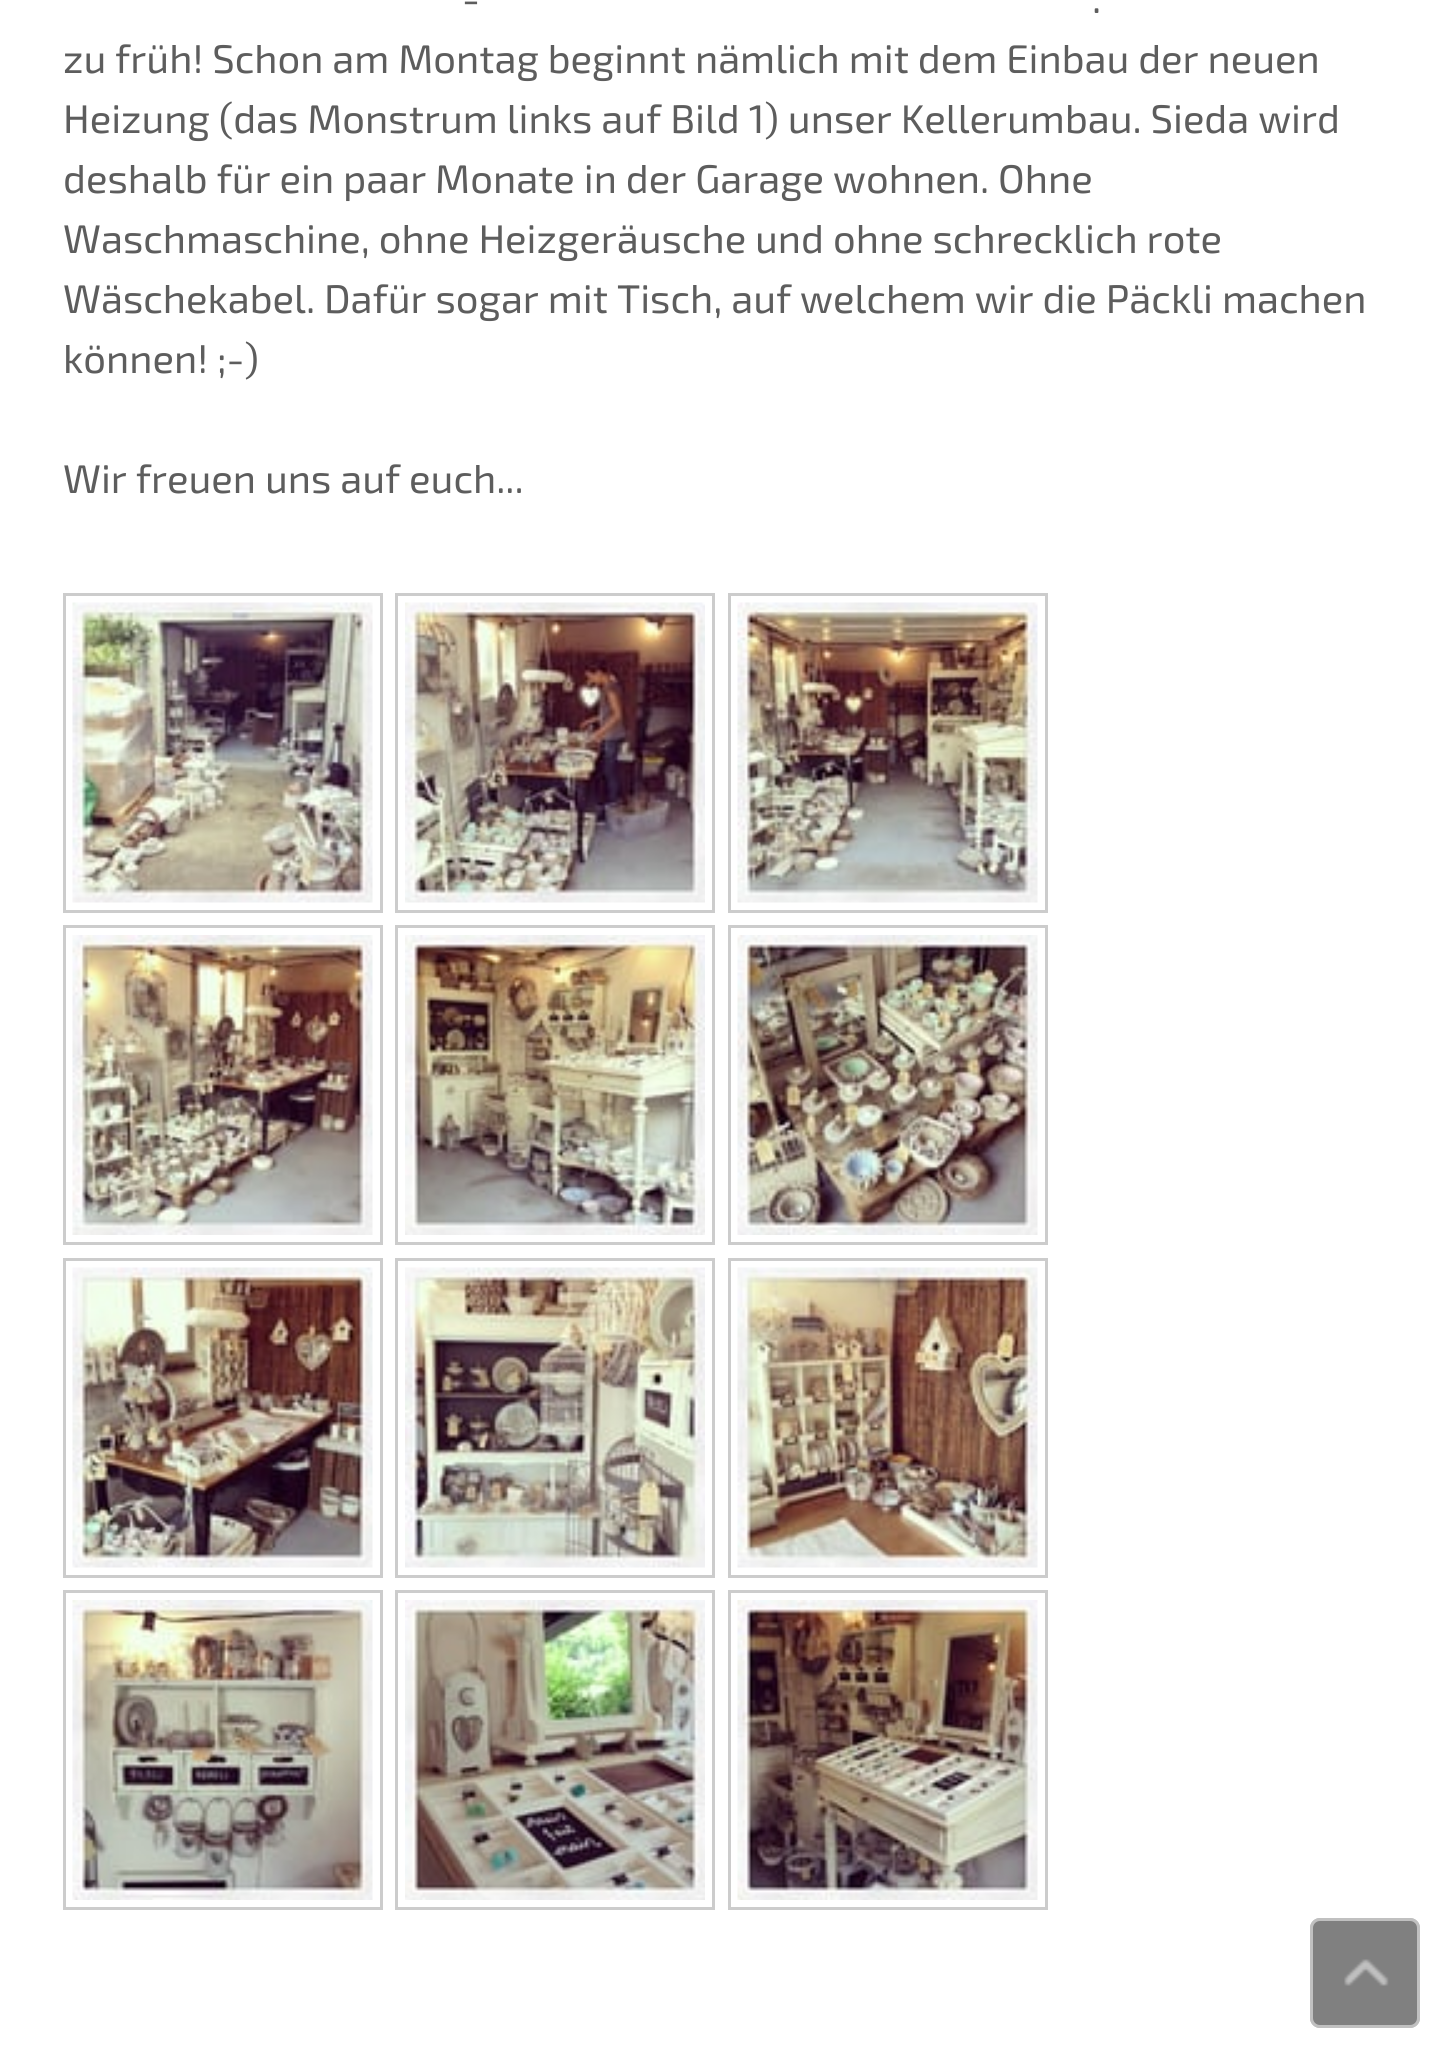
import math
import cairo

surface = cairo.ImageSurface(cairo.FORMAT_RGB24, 1448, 2052)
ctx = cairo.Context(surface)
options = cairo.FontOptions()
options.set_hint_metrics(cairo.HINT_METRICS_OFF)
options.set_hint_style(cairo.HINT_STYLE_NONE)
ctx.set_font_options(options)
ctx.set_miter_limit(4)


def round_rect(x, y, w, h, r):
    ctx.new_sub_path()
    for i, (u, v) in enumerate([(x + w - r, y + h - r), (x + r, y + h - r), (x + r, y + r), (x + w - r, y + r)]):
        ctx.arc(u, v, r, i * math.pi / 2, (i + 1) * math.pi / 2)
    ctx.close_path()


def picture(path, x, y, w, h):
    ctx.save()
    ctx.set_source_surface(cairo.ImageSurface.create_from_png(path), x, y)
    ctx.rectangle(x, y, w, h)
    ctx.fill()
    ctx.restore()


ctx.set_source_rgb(1, 1, 1)
ctx.paint()
ctx.select_font_face("Exo 2")
ctx.set_font_size(40)
ctx.set_source_rgb(0.365, 0.365, 0.365)
ctx.move_to(462, 13)
ctx.show_text("-")
ctx.move_to(1092, 13)
ctx.show_text(".")
ctx.move_to(63, 73)
ctx.show_text("zu früh! Schon am Montag beginnt nämlich mit dem Einbau der neuen")
ctx.move_to(63, 133)
ctx.show_text("Heizung (das Monstrum links auf Bild 1) unser Kellerumbau. Sieda wird")
ctx.move_to(63, 193)
ctx.show_text("deshalb für ein paar Monate in der Garage wohnen. Ohne")
ctx.move_to(63, 253)
ctx.show_text("Waschmaschine, ohne Heizgeräusche und ohne schrecklich rote")
ctx.move_to(63, 313)
ctx.show_text("Wäschekabel. Dafür sogar mit Tisch, auf welchem wir die Päckli machen")
ctx.move_to(63, 373)
ctx.show_text("können! ;-)")
ctx.move_to(63, 493)
ctx.show_text("Wir freuen uns auf euch...")
ctx.rectangle(64.5, 594.5, 317, 317)
ctx.set_source_rgb(0.8, 0.8, 0.8)
ctx.set_line_width(3)
ctx.stroke()
picture("img1.png", 72, 602, 301, 301)
ctx.rectangle(396.5, 594.5, 317, 317)
ctx.stroke()
picture("img2.png", 405, 602, 300, 301)
ctx.rectangle(729.5, 594.5, 317, 317)
ctx.stroke()
picture("img3.png", 737, 602, 301, 301)
ctx.rectangle(64.5, 926.5, 317, 317)
ctx.stroke()
picture("img4.png", 72, 935, 301, 300)
ctx.rectangle(396.5, 926.5, 317, 317)
ctx.stroke()
picture("img5.png", 405, 935, 300, 300)
ctx.rectangle(729.5, 926.5, 317, 317)
ctx.stroke()
picture("img6.png", 737, 935, 301, 300)
ctx.rectangle(64.5, 1259.5, 317, 317)
ctx.stroke()
picture("img7.png", 72, 1267, 301, 301)
ctx.rectangle(396.5, 1259.5, 317, 317)
ctx.stroke()
picture("img8.png", 405, 1267, 300, 301)
ctx.rectangle(729.5, 1259.5, 317, 317)
ctx.stroke()
picture("img9.png", 737, 1267, 301, 301)
ctx.rectangle(64.5, 1591.5, 317, 317)
ctx.stroke()
picture("img10.png", 72, 1600, 301, 300)
ctx.rectangle(396.5, 1591.5, 317, 317)
ctx.stroke()
picture("img11.png", 405, 1600, 300, 300)
ctx.rectangle(729.5, 1591.5, 317, 317)
ctx.stroke()
picture("img12.png", 737, 1600, 301, 300)
ctx.set_source_rgb(0.502, 0.502, 0.502)
round_rect(1310, 1918, 110, 110, 10)
ctx.fill()
round_rect(1311.5, 1919.5, 107, 107, 8.5)
ctx.set_source_rgba(1, 1, 1, 0.5)
ctx.stroke()
picture("img13.png", 1344, 1959, 45, 27)
surface.write_to_png("page.png")
